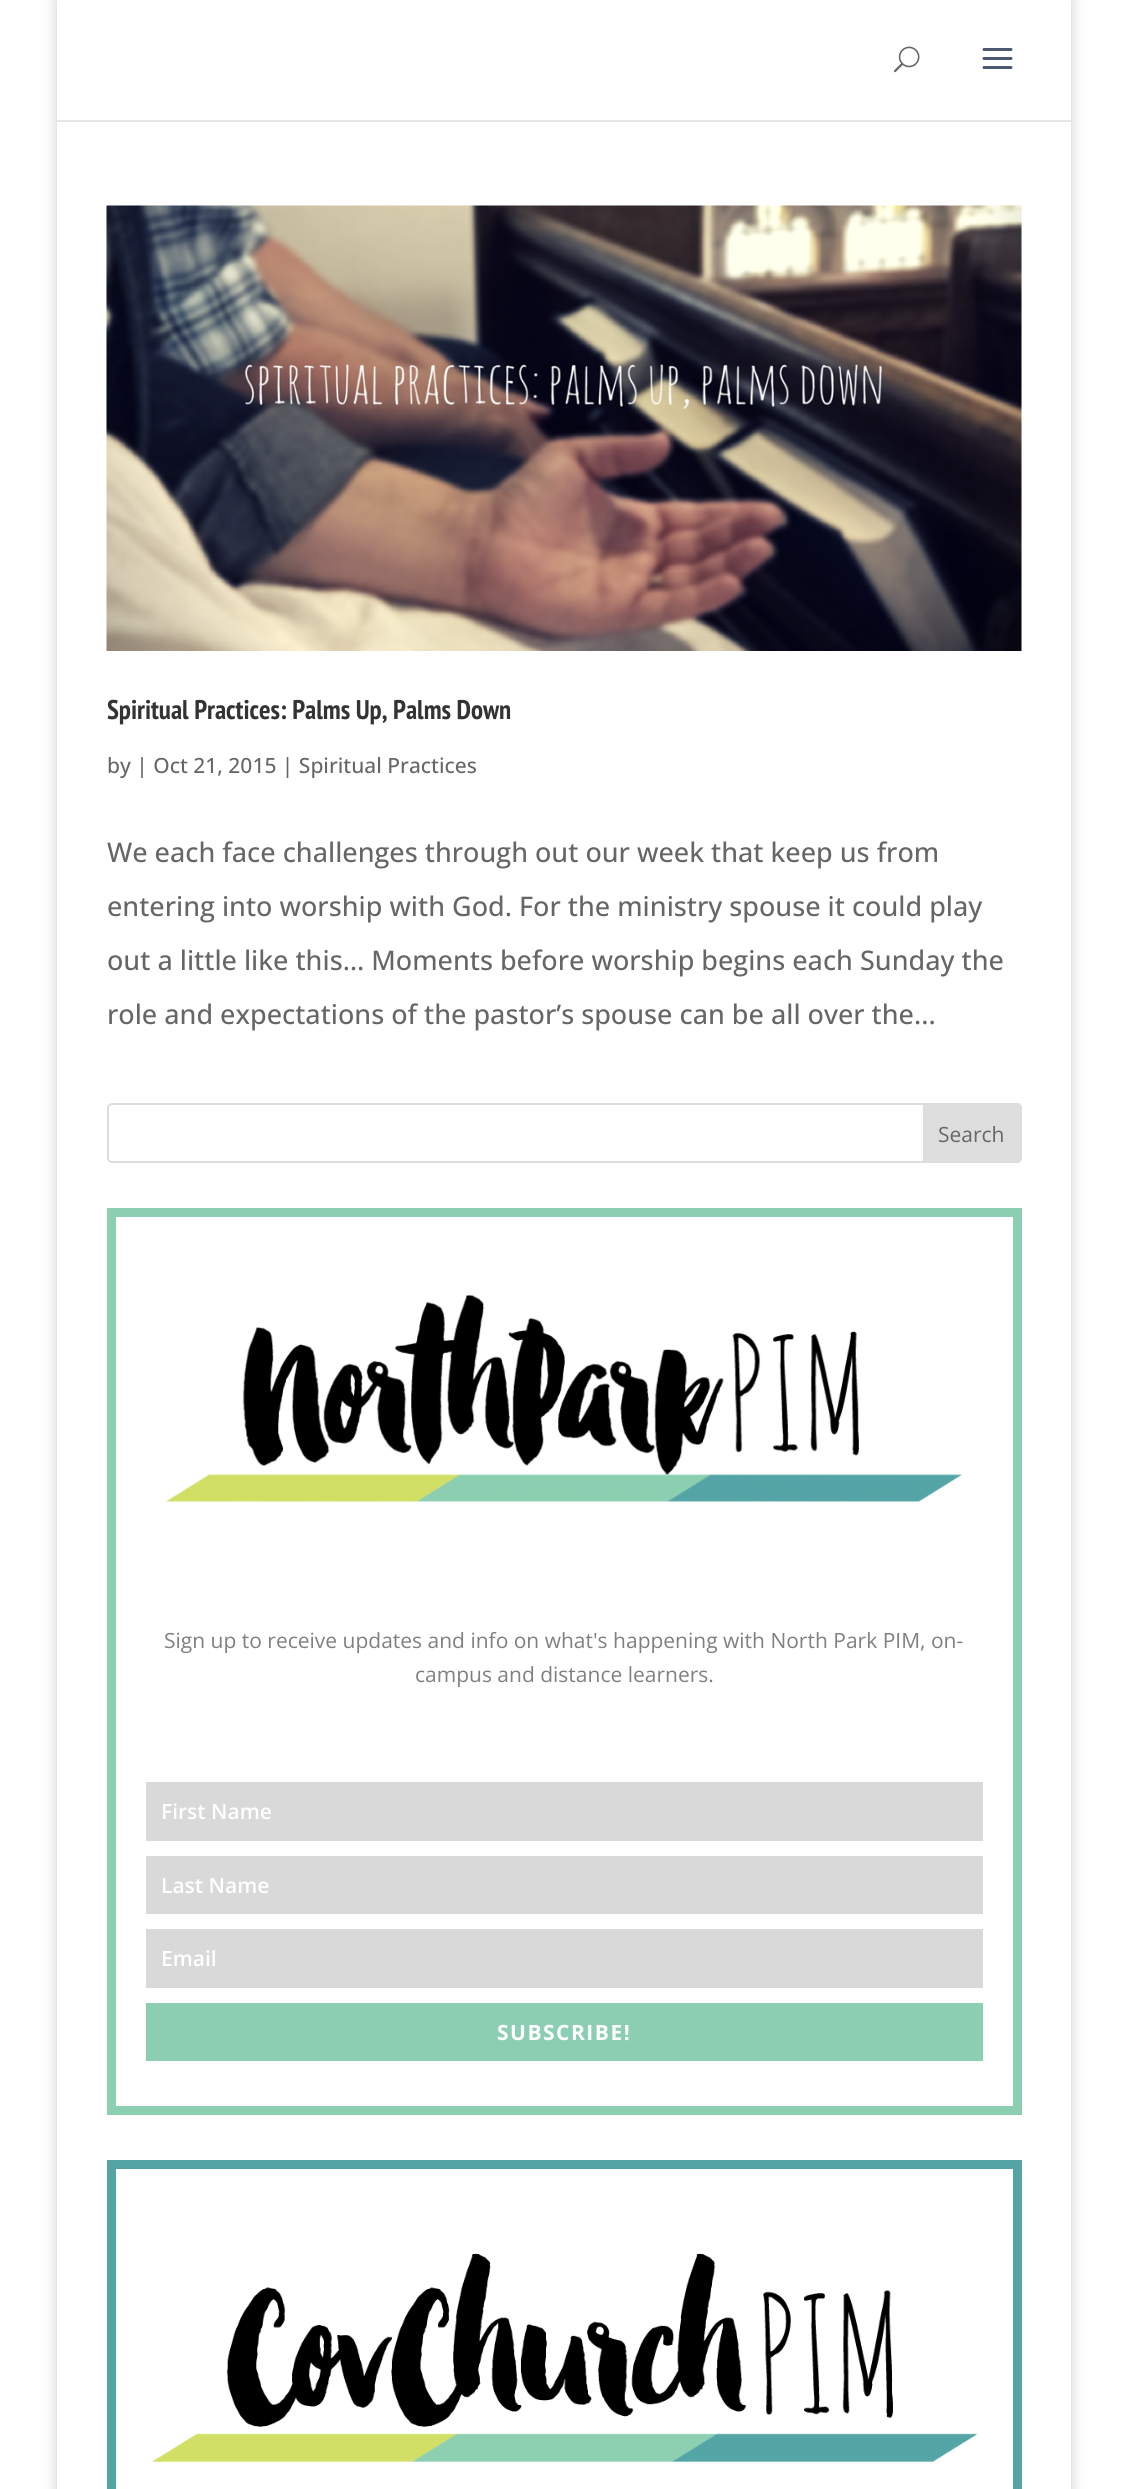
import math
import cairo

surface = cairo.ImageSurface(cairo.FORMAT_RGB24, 1127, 2489)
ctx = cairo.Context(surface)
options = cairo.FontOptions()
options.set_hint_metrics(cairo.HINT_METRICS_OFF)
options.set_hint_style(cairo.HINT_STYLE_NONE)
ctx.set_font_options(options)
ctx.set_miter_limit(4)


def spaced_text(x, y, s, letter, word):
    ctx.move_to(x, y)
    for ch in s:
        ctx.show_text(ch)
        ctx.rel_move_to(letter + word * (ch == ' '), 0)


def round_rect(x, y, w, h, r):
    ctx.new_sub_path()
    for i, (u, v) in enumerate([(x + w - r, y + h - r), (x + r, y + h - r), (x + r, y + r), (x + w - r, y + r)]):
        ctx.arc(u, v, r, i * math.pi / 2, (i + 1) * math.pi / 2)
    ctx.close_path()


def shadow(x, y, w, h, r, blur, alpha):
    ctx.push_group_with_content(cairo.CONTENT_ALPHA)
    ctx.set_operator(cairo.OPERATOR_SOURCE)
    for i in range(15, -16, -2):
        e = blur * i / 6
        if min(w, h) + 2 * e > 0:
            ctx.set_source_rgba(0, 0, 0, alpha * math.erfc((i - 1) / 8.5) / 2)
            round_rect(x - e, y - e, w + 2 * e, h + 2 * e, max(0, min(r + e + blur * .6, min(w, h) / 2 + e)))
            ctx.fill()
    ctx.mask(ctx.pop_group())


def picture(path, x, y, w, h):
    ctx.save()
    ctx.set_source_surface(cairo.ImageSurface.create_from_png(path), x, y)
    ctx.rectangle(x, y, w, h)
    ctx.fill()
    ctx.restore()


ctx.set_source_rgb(1, 1, 1)
ctx.paint()
ctx.save()
ctx.set_fill_rule(cairo.FILL_RULE_EVEN_ODD)
ctx.new_path()
ctx.move_to(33, 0)
ctx.line_to(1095, 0)
ctx.line_to(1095, 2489)
ctx.line_to(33, 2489)
ctx.close_path()
ctx.move_to(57, 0)
ctx.line_to(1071, 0)
ctx.line_to(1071, 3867)
ctx.line_to(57, 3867)
ctx.close_path()
ctx.clip()
ctx.set_source_rgb(0, 0, 0)
shadow(57, 0, 1014, 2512, 0, 7.5, 0.2)
ctx.restore()
ctx.set_source_rgb(0.902, 0.902, 0.902)
ctx.rectangle(57, 120, 1014, 2)
ctx.fill()
picture("img1.png", 893, 46, 27, 27)
picture("img2.png", 982, 48, 31, 21)
picture("img3.png", 106, 205, 916, 446)
ctx.select_font_face("PT Sans Narrow", cairo.FONT_SLANT_NORMAL, cairo.FONT_WEIGHT_BOLD)
ctx.set_font_size(27)
ctx.set_source_rgb(0.2, 0.2, 0.2)
ctx.move_to(107, 719)
ctx.show_text("Spiritual Practices: Palms Up, Palms Down")
ctx.select_font_face("Open Sans Medium")
ctx.set_font_size(21)
ctx.set_source_rgb(0.4, 0.4, 0.4)
ctx.move_to(107, 773)
ctx.show_text("by | Oct 21, 2015 | Spiritual Practices")
ctx.set_font_size(27)
ctx.move_to(107, 862)
ctx.show_text("We each face challenges through out our week that keep us from")
ctx.move_to(107, 916)
ctx.show_text("entering into worship with God. For the ministry spouse it could play")
ctx.move_to(107, 970)
ctx.show_text("out a little like this… Moments before worship begins each Sunday the")
ctx.move_to(107, 1024)
ctx.show_text("role and expectations of the pastor’s spouse can be all over the...")
round_rect(108, 1104, 913, 58, 4)
ctx.set_source_rgb(0.867, 0.867, 0.867)
ctx.stroke()
ctx.new_path()
ctx.move_to(924, 1104)
ctx.line_to(1017, 1104)
ctx.curve_to(1019, 1104, 1021, 1106, 1021, 1108)
ctx.line_to(1021, 1158)
ctx.curve_to(1021, 1160, 1019, 1162, 1017, 1162)
ctx.line_to(924, 1162)
ctx.close_path()
ctx.fill_preserve()
ctx.stroke()
ctx.select_font_face("Open Sans")
ctx.set_font_size(21)
ctx.set_source_rgb(0.4, 0.4, 0.4)
ctx.move_to(938, 1142)
ctx.show_text("Search")
ctx.rectangle(111.5, 1212.5, 906, 898)
ctx.set_source_rgb(0.549, 0.808, 0.694)
ctx.set_line_width(9)
ctx.stroke()
picture("img4.png", 166, 1294, 796, 208)
ctx.set_source_rgb(0.502, 0.502, 0.502)
ctx.move_to(164, 1648)
ctx.show_text("Sign up to receive updates and info on what's happening with North Park PIM, on-")
ctx.move_to(415, 1682)
ctx.show_text("campus and distance learners.")
ctx.set_source_rgb(0.851, 0.851, 0.851)
ctx.rectangle(146, 1782, 837, 59)
ctx.fill()
ctx.select_font_face("Open Sans SemiBold")
ctx.set_source_rgb(1, 1, 1)
ctx.move_to(161, 1819)
ctx.show_text("First Name")
ctx.set_source_rgb(0.851, 0.851, 0.851)
ctx.rectangle(146, 1856, 837, 58)
ctx.fill()
ctx.set_source_rgb(1, 1, 1)
ctx.move_to(161, 1893)
ctx.show_text("Last Name")
ctx.set_source_rgb(0.851, 0.851, 0.851)
ctx.rectangle(146, 1929, 837, 59)
ctx.fill()
ctx.set_source_rgb(1, 1, 1)
ctx.move_to(161, 1966)
ctx.show_text("Email")
ctx.set_source_rgb(0.549, 0.808, 0.694)
ctx.rectangle(146, 2003, 837, 58)
ctx.fill()
ctx.select_font_face("Open Sans", cairo.FONT_SLANT_NORMAL, cairo.FONT_WEIGHT_BOLD)
ctx.set_source_rgb(1, 1, 1)
spaced_text(497, 2040, "SUBSCRIBE!", 1.5, 0)
ctx.rectangle(111.5, 2164.5, 906, 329)
ctx.set_source_rgb(0.333, 0.643, 0.647)
ctx.stroke()
picture("img5.png", 152, 2253, 826, 209)
surface.write_to_png("page.png")
